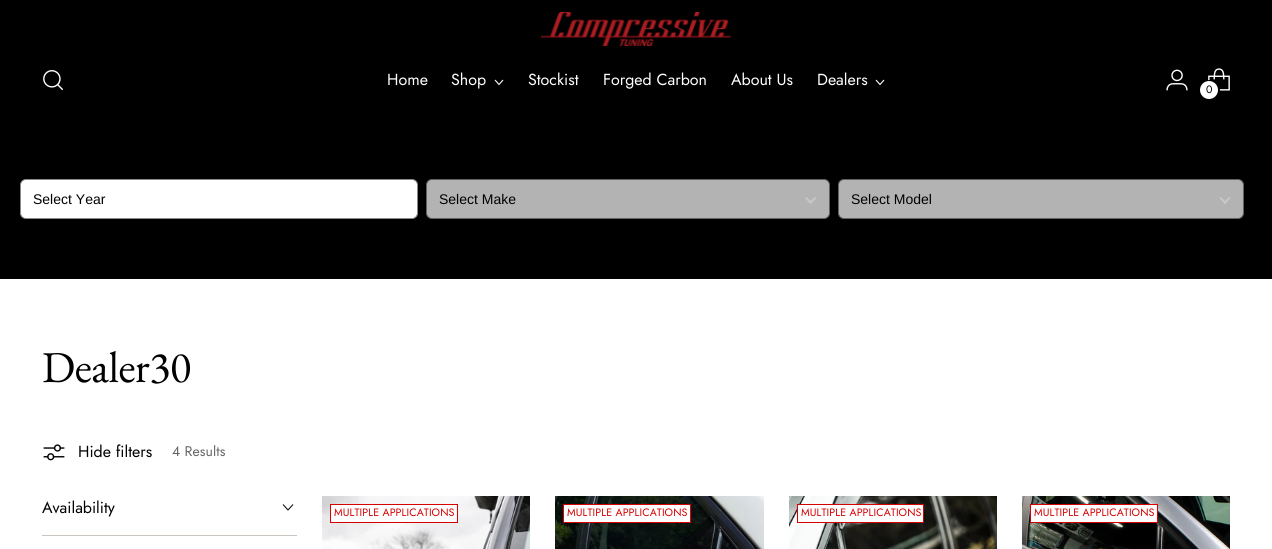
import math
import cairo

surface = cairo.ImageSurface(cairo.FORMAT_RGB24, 1272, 549)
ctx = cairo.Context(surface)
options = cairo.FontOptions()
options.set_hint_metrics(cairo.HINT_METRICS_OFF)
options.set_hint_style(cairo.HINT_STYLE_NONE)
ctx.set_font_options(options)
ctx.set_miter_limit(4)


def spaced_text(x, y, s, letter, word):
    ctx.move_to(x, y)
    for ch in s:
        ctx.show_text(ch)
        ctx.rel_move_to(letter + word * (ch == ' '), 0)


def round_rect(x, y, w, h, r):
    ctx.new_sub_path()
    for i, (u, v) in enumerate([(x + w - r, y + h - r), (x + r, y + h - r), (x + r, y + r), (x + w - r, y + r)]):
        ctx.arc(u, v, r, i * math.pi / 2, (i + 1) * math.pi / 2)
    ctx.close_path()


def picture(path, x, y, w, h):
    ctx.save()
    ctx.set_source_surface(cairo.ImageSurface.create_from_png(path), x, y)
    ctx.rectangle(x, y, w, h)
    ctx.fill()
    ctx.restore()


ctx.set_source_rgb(1, 1, 1)
ctx.paint()
ctx.set_source_rgb(0, 0, 0)
ctx.rectangle(0, 0, 1272, 279)
ctx.fill()
picture("img1.png", 541, 12, 190, 34)
picture("img2.png", 43, 70, 21, 21)
ctx.select_font_face("Jost")
ctx.set_font_size(16)
ctx.set_source_rgb(1, 1, 1)
ctx.move_to(387, 85)
ctx.show_text("Home")
ctx.move_to(451, 85)
ctx.show_text("Shop")
ctx.new_path()
ctx.move_to(495, 80)
ctx.line_to(499, 84.5)
ctx.line_to(503, 80)
ctx.set_line_width(1.1)
ctx.stroke()
ctx.move_to(528, 85)
ctx.show_text("Stockist")
ctx.move_to(603, 85)
ctx.show_text("Forged Carbon")
ctx.move_to(731, 85)
ctx.show_text("About Us")
ctx.move_to(817, 85)
ctx.show_text("Dealers")
ctx.new_path()
ctx.move_to(876, 80)
ctx.line_to(880, 84.5)
ctx.line_to(884, 80)
ctx.stroke()
picture("img3.png", 1166, 69, 22, 22)
picture("img4.png", 1208, 68, 22, 23)
ctx.arc(1209.5, 90.5, 9.5, 0, 2 * math.pi)
ctx.set_source_rgb(0, 0, 0)
ctx.set_line_width(2)
ctx.stroke()
ctx.set_source_rgb(1, 1, 1)
ctx.arc(1209, 90, 9, 0, 2 * math.pi)
ctx.fill()
ctx.set_font_size(10.7)
ctx.set_source_rgb(0, 0, 0)
spaced_text(1206, 93, "0", 0.1, 0)
ctx.set_source_rgb(1, 1, 1)
round_rect(20.5, 179.5, 397, 39, 5.5)
ctx.fill_preserve()
ctx.set_source_rgb(0.541, 0.541, 0.541)
ctx.set_line_width(1)
ctx.stroke()
ctx.select_font_face("Liberation Sans")
ctx.set_font_size(14)
ctx.set_source_rgb(0, 0, 0)
ctx.move_to(33, 204)
ctx.show_text("Select Year")
ctx.set_source_rgb(0.29, 0.29, 0.29)
ctx.new_path()
ctx.move_to(815, 197)
ctx.line_to(816.5, 198)
ctx.line_to(810.5, 204)
ctx.line_to(809, 202.5)
ctx.close_path()
ctx.fill()
ctx.new_path()
ctx.move_to(806.5, 197)
ctx.line_to(812, 202.5)
ctx.line_to(810.5, 204)
ctx.line_to(805, 198)
ctx.close_path()
ctx.fill()
ctx.set_source_rgba(1, 1, 1, 0.7)
round_rect(426.5, 179.5, 403, 39, 5.5)
ctx.fill_preserve()
ctx.set_source_rgb(0.38, 0.38, 0.38)
ctx.stroke()
ctx.set_source_rgb(0, 0, 0)
ctx.move_to(439, 204)
ctx.show_text("Select Make")
ctx.set_source_rgb(0.29, 0.29, 0.29)
ctx.new_path()
ctx.move_to(1229, 197)
ctx.line_to(1230.5, 198)
ctx.line_to(1225, 204)
ctx.line_to(1223.5, 202.5)
ctx.close_path()
ctx.fill()
ctx.new_path()
ctx.move_to(1220.5, 197)
ctx.line_to(1226.5, 202.5)
ctx.line_to(1225, 204)
ctx.line_to(1219.5, 198)
ctx.close_path()
ctx.fill()
ctx.set_source_rgba(1, 1, 1, 0.7)
round_rect(838.5, 179.5, 405, 39, 5.5)
ctx.fill_preserve()
ctx.set_source_rgb(0.38, 0.38, 0.38)
ctx.stroke()
ctx.set_source_rgb(0, 0, 0)
ctx.move_to(851, 204)
ctx.show_text("Select Model")
ctx.select_font_face("EB Garamond")
ctx.set_font_size(44)
spaced_text(42, 382, "Dealer30", -0.5, 0)
picture("img5.png", 43, 444, 22, 17)
ctx.select_font_face("Jost")
ctx.set_font_size(16)
ctx.move_to(78, 457)
ctx.show_text("Hide filters")
ctx.set_font_size(14)
ctx.set_source_rgb(0.4, 0.4, 0.4)
spaced_text(172, 456, "4 Results", 0.1, 0)
ctx.set_font_size(16)
ctx.set_source_rgb(0, 0, 0)
ctx.move_to(42, 513)
ctx.show_text("Availability")
ctx.new_path()
ctx.move_to(283, 504.5)
ctx.line_to(288, 510)
ctx.line_to(293, 504.5)
ctx.stroke()
ctx.set_source_rgb(0.788, 0.773, 0.745)
ctx.rectangle(42, 535, 255, 1)
ctx.fill()
picture("img6.png", 322, 496, 208, 53)
ctx.set_source_rgb(1, 1, 1)
ctx.rectangle(330.5, 504.5, 127, 18)
ctx.fill_preserve()
ctx.set_source_rgb(0.835, 0, 0)
ctx.stroke()
ctx.set_font_size(10.7)
spaced_text(334, 516, "MULTIPLE APPLICATIONS", 0.1, 0)
picture("img7.png", 555, 496, 209, 53)
ctx.set_source_rgb(1, 1, 1)
ctx.rectangle(563.5, 504.5, 127, 18)
ctx.fill_preserve()
ctx.set_source_rgb(0.835, 0, 0)
ctx.stroke()
spaced_text(567, 516, "MULTIPLE APPLICATIONS", 0.1, 0)
picture("img8.png", 789, 496, 208, 53)
ctx.set_source_rgb(1, 1, 1)
ctx.rectangle(797.5, 504.5, 126, 18)
ctx.fill_preserve()
ctx.set_source_rgb(0.835, 0, 0)
ctx.stroke()
spaced_text(801, 516, "MULTIPLE APPLICATIONS", 0.1, 0)
picture("img9.png", 1022, 496, 208, 53)
ctx.set_source_rgb(1, 1, 1)
ctx.rectangle(1030.5, 504.5, 127, 18)
ctx.fill_preserve()
ctx.set_source_rgb(0.835, 0, 0)
ctx.stroke()
spaced_text(1034, 516, "MULTIPLE APPLICATIONS", 0.1, 0)
surface.write_to_png("page.png")
